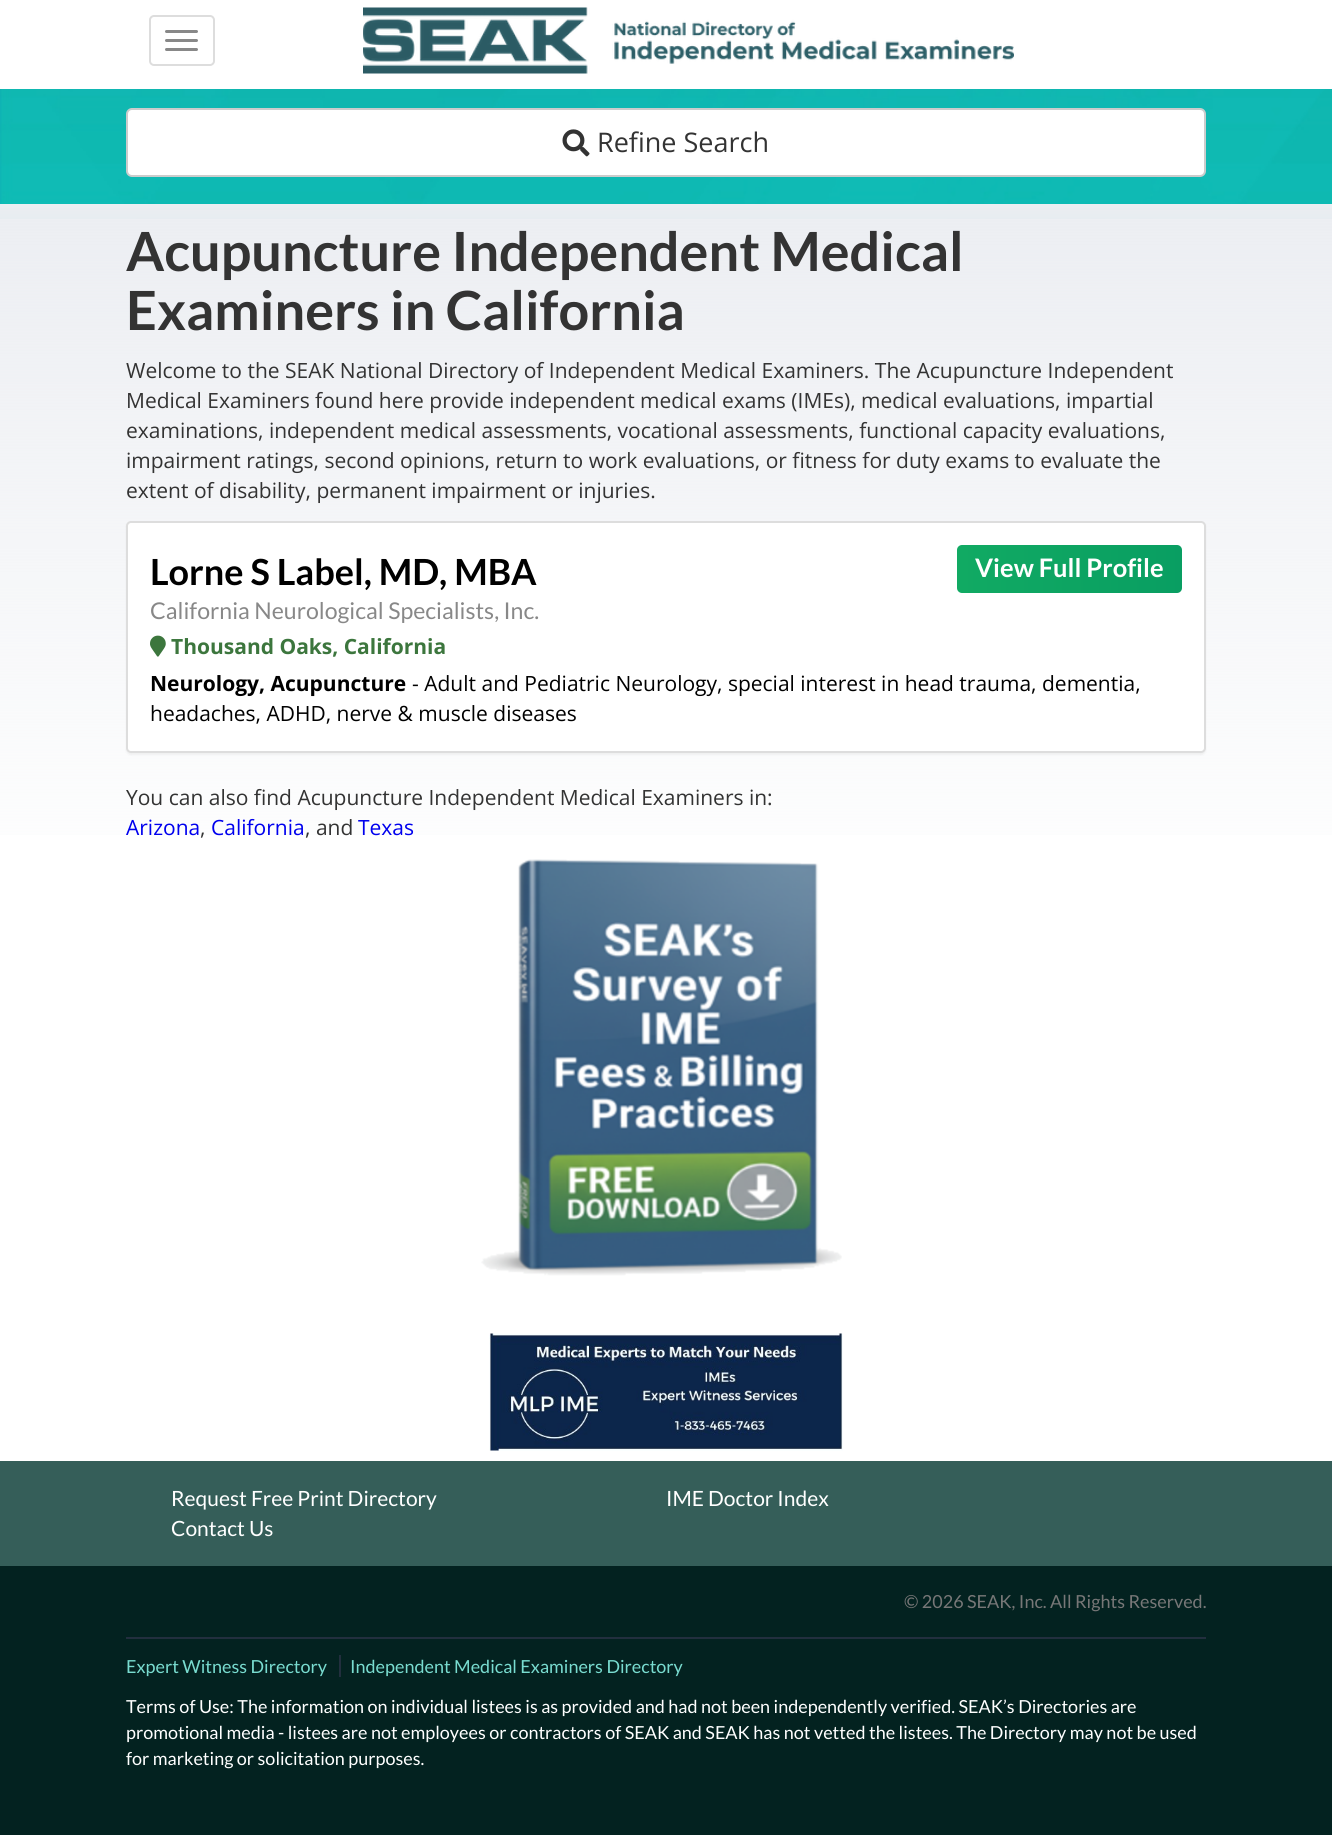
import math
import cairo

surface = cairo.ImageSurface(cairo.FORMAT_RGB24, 1332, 1835)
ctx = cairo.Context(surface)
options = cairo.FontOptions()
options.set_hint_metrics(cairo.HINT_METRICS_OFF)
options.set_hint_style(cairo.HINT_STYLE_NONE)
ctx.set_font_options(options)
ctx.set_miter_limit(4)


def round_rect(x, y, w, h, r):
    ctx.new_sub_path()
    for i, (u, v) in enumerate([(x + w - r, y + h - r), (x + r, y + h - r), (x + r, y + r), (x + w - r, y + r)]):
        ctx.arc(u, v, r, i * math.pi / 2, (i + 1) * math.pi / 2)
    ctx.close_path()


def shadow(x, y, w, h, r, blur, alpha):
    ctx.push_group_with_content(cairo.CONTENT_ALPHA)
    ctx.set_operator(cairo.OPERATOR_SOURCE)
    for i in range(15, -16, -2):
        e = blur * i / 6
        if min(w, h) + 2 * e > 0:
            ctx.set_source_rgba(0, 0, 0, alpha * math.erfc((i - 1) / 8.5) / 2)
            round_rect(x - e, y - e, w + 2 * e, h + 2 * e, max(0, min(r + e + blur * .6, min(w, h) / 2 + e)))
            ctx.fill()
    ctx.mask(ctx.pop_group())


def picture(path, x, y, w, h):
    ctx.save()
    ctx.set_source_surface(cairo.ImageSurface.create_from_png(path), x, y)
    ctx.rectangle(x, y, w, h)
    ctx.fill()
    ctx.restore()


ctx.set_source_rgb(1, 1, 1)
ctx.paint()
round_rect(150, 16, 64, 49, 4)
ctx.set_source_rgb(0.867, 0.867, 0.867)
ctx.stroke()
ctx.set_source_rgb(0.533, 0.533, 0.533)
round_rect(165, 30, 33, 3, 1.5)
ctx.fill()
round_rect(165, 39, 33, 3, 1.5)
ctx.fill()
round_rect(165, 48, 33, 3, 1.5)
ctx.fill()
picture("img1.png", 363, 7, 651, 67)
picture("img2.png", 0, 89, 1332, 130)
ctx.set_source_rgb(1, 1, 1)
round_rect(127, 109, 1078, 67, 5)
ctx.fill_preserve()
ctx.set_source_rgb(0.8, 0.8, 0.8)
ctx.stroke()
picture("img3.png", 562, 129, 28, 28)
ctx.select_font_face("Open Sans")
ctx.set_font_size(27)
ctx.set_source_rgb(0.2, 0.2, 0.2)
ctx.move_to(597, 152)
ctx.show_text("Refine Search")
gradient = cairo.LinearGradient(666, 204, 666, 917)
gradient.add_color_stop_rgba(0, 0.925, 0.933, 0.949, 1)
gradient.add_color_stop_rgba(1, 0.925, 0.933, 0.949, 0)
ctx.set_source(gradient)
ctx.rectangle(0, 204, 1332, 631)
ctx.fill()
ctx.select_font_face("Lato", cairo.FONT_SLANT_NORMAL, cairo.FONT_WEIGHT_BOLD)
ctx.set_font_size(54)
ctx.set_source_rgb(0.2, 0.2, 0.2)
ctx.move_to(126, 271)
ctx.show_text("Acupuncture Independent Medical")
ctx.move_to(126, 330)
ctx.show_text("Examiners in California")
ctx.select_font_face("Open Sans")
ctx.set_font_size(21)
ctx.move_to(126, 378)
ctx.show_text("Welcome to the SEAK National Directory of Independent Medical Examiners. The Acupuncture Independent")
ctx.move_to(126, 408)
ctx.show_text("Medical Examiners found here provide independent medical exams (IMEs), medical evaluations, impartial")
ctx.move_to(126, 438)
ctx.show_text("examinations, independent medical assessments, vocational assessments, functional capacity evaluations,")
ctx.move_to(126, 468)
ctx.show_text("impairment ratings, second opinions, return to work evaluations, or fitness for duty exams to evaluate the")
ctx.move_to(126, 498)
ctx.show_text("extent of disability, permanent impairment or injuries.")
ctx.set_source_rgb(0, 0, 0)
shadow(126, 522, 1080, 233, 5, 1, 0.05)
ctx.set_source_rgb(1, 1, 1)
round_rect(127, 522, 1078, 230, 4)
ctx.fill_preserve()
ctx.set_source_rgb(0.867, 0.867, 0.867)
ctx.stroke()
ctx.select_font_face("Lato", cairo.FONT_SLANT_NORMAL, cairo.FONT_WEIGHT_BOLD)
ctx.set_font_size(36)
ctx.set_source_rgb(0, 0, 0)
ctx.move_to(150, 585)
ctx.show_text("Lorne S Label, MD, MBA")
gradient = cairo.LinearGradient(957, 569, 1182, 569)
gradient.add_color_stop_rgba(0, 0.067, 0.667, 0.388, 1)
gradient.add_color_stop_rgba(1, 0.035, 0.62, 0.384, 1)
ctx.set_source(gradient)
round_rect(957, 545, 225, 48, 5)
ctx.fill()
ctx.set_font_size(25.5)
ctx.set_source_rgb(1, 1, 1)
ctx.move_to(975, 577)
ctx.show_text("View Full Profile")
ctx.select_font_face("Lato")
ctx.set_font_size(23.1)
ctx.set_source_rgb(0.533, 0.533, 0.533)
ctx.move_to(150, 619)
ctx.show_text("California Neurological Specialists, Inc.")
picture("img4.png", 150, 635, 16, 22)
ctx.select_font_face("Open Sans", cairo.FONT_SLANT_NORMAL, cairo.FONT_WEIGHT_BOLD)
ctx.set_font_size(21)
ctx.set_source_rgb(0.235, 0.463, 0.239)
ctx.move_to(171, 654)
ctx.show_text("Thousand Oaks, California")
ctx.set_source_rgb(0, 0, 0)
ctx.move_to(150, 691)
ctx.show_text("Neurology, Acupuncture")
ctx.select_font_face("Open Sans")
ctx.move_to(412, 691)
ctx.show_text("- Adult and Pediatric Neurology, special interest in head trauma, dementia,")
ctx.move_to(150, 721)
ctx.show_text("headaches, ADHD, nerve & muscle diseases")
ctx.set_source_rgb(0.2, 0.2, 0.2)
ctx.move_to(126, 805)
ctx.show_text("You can also find Acupuncture Independent Medical Examiners in:")
ctx.set_source_rgb(0, 0, 0.933)
ctx.move_to(126, 835)
ctx.show_text("Arizona")
ctx.set_source_rgb(0.2, 0.2, 0.2)
ctx.move_to(200, 835)
ctx.show_text(",")
ctx.set_source_rgb(0, 0, 0.933)
ctx.move_to(211, 835)
ctx.show_text("California")
ctx.set_source_rgb(0.2, 0.2, 0.2)
ctx.move_to(305, 835)
ctx.show_text(", and")
ctx.set_source_rgb(0, 0, 0.933)
ctx.move_to(358, 835)
ctx.show_text("Texas")
picture("img5.png", 481, 859, 361, 417)
picture("img6.png", 489, 1333, 354, 118)
ctx.set_source_rgb(0.208, 0.369, 0.349)
ctx.rectangle(0, 1461, 1332, 105)
ctx.fill()
ctx.select_font_face("Lato")
ctx.set_source_rgb(1, 1, 1)
ctx.move_to(171, 1506)
ctx.show_text("Request Free Print Directory")
ctx.move_to(666, 1506)
ctx.show_text("IME Doctor Index")
ctx.move_to(171, 1536)
ctx.show_text("Contact Us")
ctx.set_source_rgb(0.012, 0.133, 0.125)
ctx.rectangle(0, 1566, 1332, 269)
ctx.fill()
ctx.set_source_rgb(0.133, 0.184, 0.243)
ctx.rectangle(126, 1637, 1080, 2)
ctx.fill()
ctx.set_font_size(18)
ctx.set_source_rgb(0.467, 0.467, 0.467)
ctx.move_to(904, 1608)
ctx.show_text("© 2026 SEAK, Inc. All Rights Reserved.")
ctx.set_source_rgb(0.475, 0.863, 0.816)
ctx.move_to(126, 1673)
ctx.show_text("Expert Witness Directory")
ctx.move_to(350, 1673)
ctx.show_text("Independent Medical Examiners Directory")
ctx.set_source_rgb(0.133, 0.184, 0.243)
ctx.rectangle(339, 1655, 2, 22)
ctx.fill()
ctx.set_source_rgb(1, 1, 1)
ctx.move_to(126, 1713)
ctx.show_text("Terms of Use: The information on individual listees is as provided and had not been independently verified. SEAK’s Directories are")
ctx.move_to(126, 1739)
ctx.show_text("promotional media - listees are not employees or contractors of SEAK and SEAK has not vetted the listees. The Directory may not be used")
ctx.move_to(126, 1765)
ctx.show_text("for marketing or solicitation purposes.")
surface.write_to_png("page.png")
